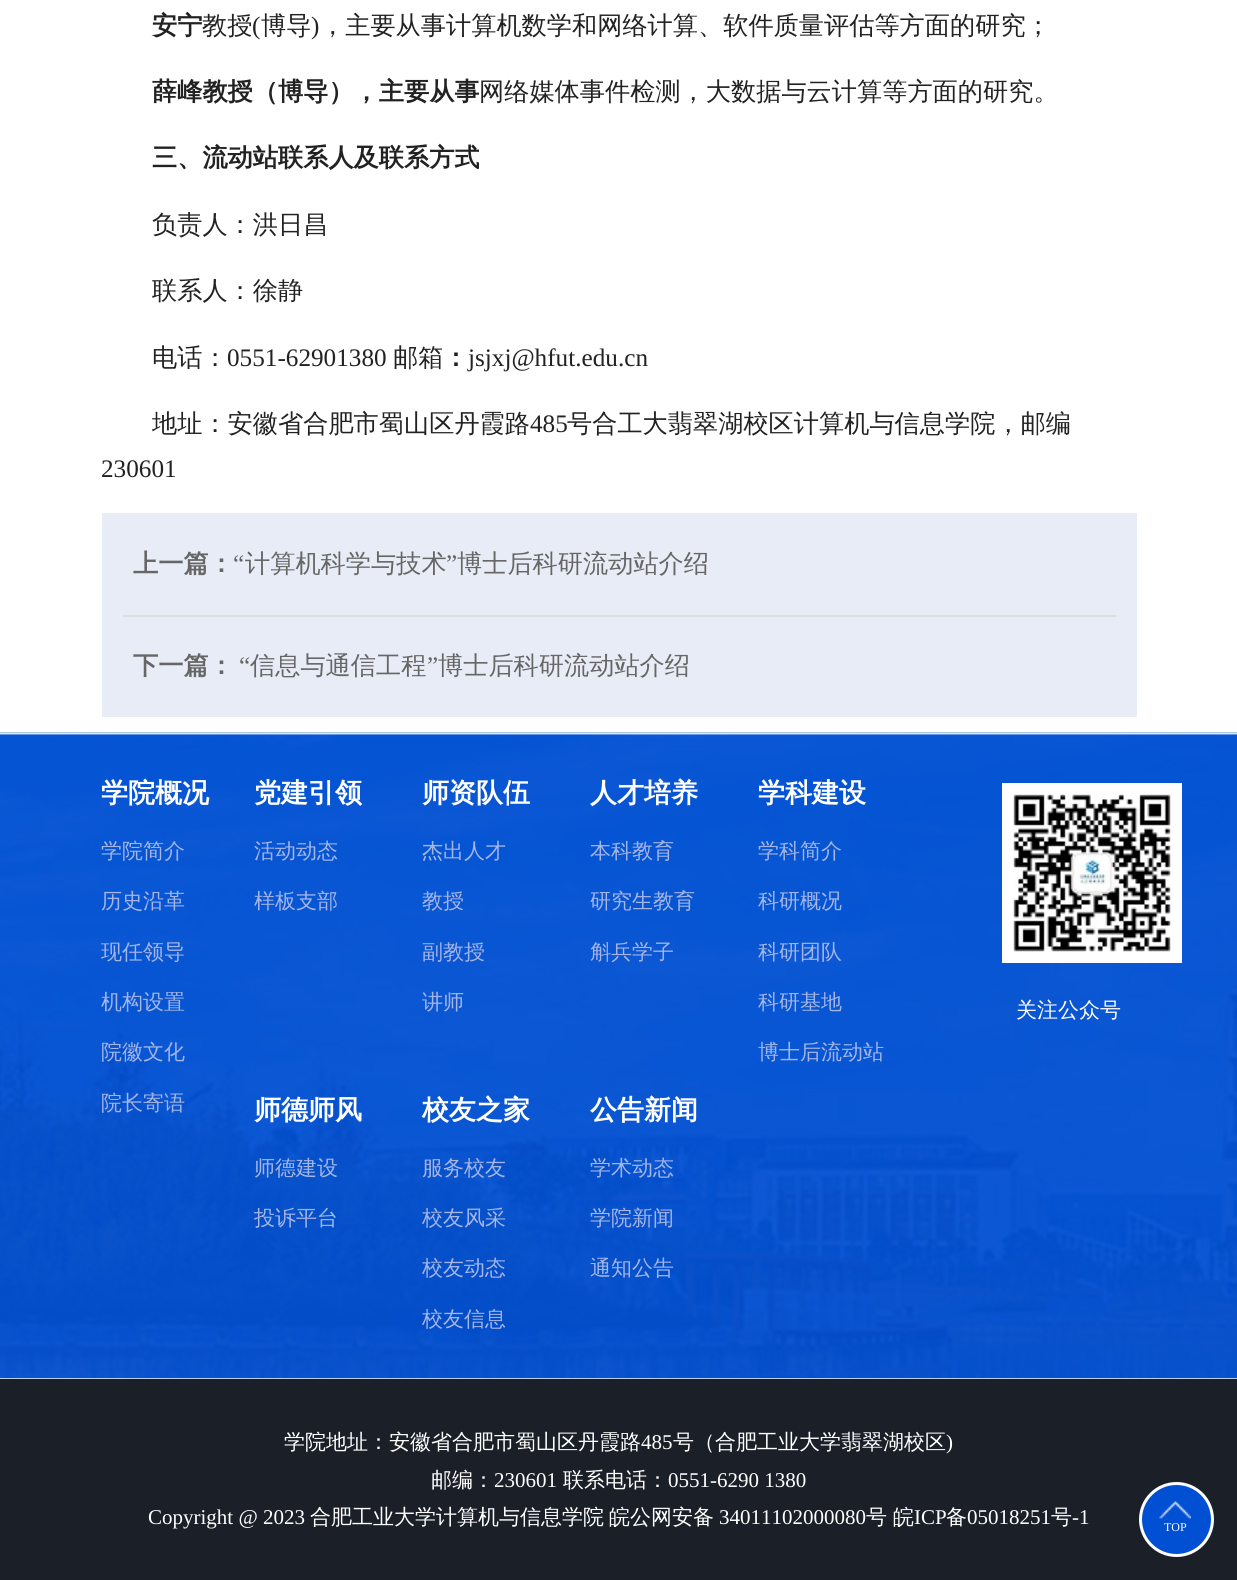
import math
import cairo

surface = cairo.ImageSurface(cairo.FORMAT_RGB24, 1237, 1580)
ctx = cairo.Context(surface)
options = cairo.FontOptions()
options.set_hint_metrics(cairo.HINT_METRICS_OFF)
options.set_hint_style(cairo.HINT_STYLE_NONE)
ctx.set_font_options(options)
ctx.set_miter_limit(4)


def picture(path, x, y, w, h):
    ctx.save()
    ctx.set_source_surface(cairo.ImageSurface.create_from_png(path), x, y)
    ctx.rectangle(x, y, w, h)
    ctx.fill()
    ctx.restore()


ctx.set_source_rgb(1, 1, 1)
ctx.paint()
ctx.select_font_face("WenQuanYi Zen Hei", cairo.FONT_SLANT_NORMAL, cairo.FONT_WEIGHT_BOLD)
ctx.set_font_size(25.2)
ctx.set_source_rgb(0.133, 0.133, 0.133)
ctx.move_to(152, 34)
ctx.show_text("安宁")
ctx.select_font_face("WenQuanYi Zen Hei Medium")
ctx.move_to(202, 34)
ctx.show_text("教授")
ctx.select_font_face("Liberation Serif")
ctx.move_to(252, 34)
ctx.show_text("(")
ctx.select_font_face("WenQuanYi Zen Hei Medium")
ctx.move_to(261, 34)
ctx.show_text("博导")
ctx.select_font_face("Liberation Serif")
ctx.move_to(311, 34)
ctx.show_text(")")
ctx.select_font_face("WenQuanYi Zen Hei Medium")
ctx.move_to(320, 34)
ctx.show_text("，主要从事计算机数学和网络计算、软件质量评估等方面的研究；")
ctx.select_font_face("WenQuanYi Zen Hei", cairo.FONT_SLANT_NORMAL, cairo.FONT_WEIGHT_BOLD)
ctx.move_to(152, 100)
ctx.show_text("薛峰教授（博导），主要从事")
ctx.select_font_face("WenQuanYi Zen Hei Medium")
ctx.move_to(479, 100)
ctx.show_text("网络媒体事件检测，大数据与云计算等方面的研究。")
ctx.select_font_face("WenQuanYi Zen Hei", cairo.FONT_SLANT_NORMAL, cairo.FONT_WEIGHT_BOLD)
ctx.move_to(152, 166)
ctx.show_text("三、流动站联系人及联系方式")
ctx.select_font_face("WenQuanYi Zen Hei Medium")
ctx.move_to(152, 233)
ctx.show_text("负责人：洪日昌")
ctx.move_to(152, 299)
ctx.show_text("联系人：徐静")
ctx.move_to(152, 366)
ctx.show_text("电话：")
ctx.select_font_face("Liberation Serif")
ctx.move_to(227, 366)
ctx.show_text("0551-62901380")
ctx.select_font_face("WenQuanYi Zen Hei Medium")
ctx.move_to(393, 366)
ctx.show_text("邮箱")
ctx.select_font_face("WenQuanYi Zen Hei", cairo.FONT_SLANT_NORMAL, cairo.FONT_WEIGHT_BOLD)
ctx.move_to(443, 366)
ctx.show_text("：")
ctx.select_font_face("Liberation Serif")
ctx.move_to(468, 366)
ctx.show_text("jsjxj@hfut.edu.cn")
ctx.select_font_face("WenQuanYi Zen Hei Medium")
ctx.move_to(152, 432)
ctx.show_text("地址：安徽省合肥市蜀山区丹霞路")
ctx.select_font_face("Liberation Serif")
ctx.move_to(530, 432)
ctx.show_text("485")
ctx.select_font_face("WenQuanYi Zen Hei Medium")
ctx.move_to(567, 432)
ctx.show_text("号合工大翡翠湖校区计算机与信息学院，邮编")
ctx.select_font_face("Liberation Serif")
ctx.move_to(101, 477)
ctx.show_text("230601")
ctx.set_source_rgb(0.91, 0.925, 0.965)
ctx.rectangle(102, 513, 1035, 204)
ctx.fill()
ctx.select_font_face("WenQuanYi Zen Hei", cairo.FONT_SLANT_NORMAL, cairo.FONT_WEIGHT_BOLD)
ctx.set_source_rgb(0.4, 0.4, 0.4)
ctx.move_to(133, 572)
ctx.show_text("上一篇：")
ctx.select_font_face("Liberation Serif")
ctx.move_to(233, 572)
ctx.show_text("“")
ctx.select_font_face("WenQuanYi Zen Hei Medium")
ctx.move_to(245, 572)
ctx.show_text("计算机科学与技术")
ctx.select_font_face("Liberation Serif")
ctx.move_to(446, 572)
ctx.show_text("”")
ctx.select_font_face("WenQuanYi Zen Hei Medium")
ctx.move_to(457, 572)
ctx.show_text("博士后科研流动站介绍")
ctx.set_source_rgb(0.867, 0.867, 0.867)
ctx.rectangle(123, 615, 993, 2)
ctx.fill()
ctx.select_font_face("WenQuanYi Zen Hei", cairo.FONT_SLANT_NORMAL, cairo.FONT_WEIGHT_BOLD)
ctx.set_source_rgb(0.4, 0.4, 0.4)
ctx.move_to(133, 674)
ctx.show_text("下一篇：")
ctx.select_font_face("Liberation Serif")
ctx.move_to(239, 674)
ctx.show_text("“")
ctx.select_font_face("WenQuanYi Zen Hei Medium")
ctx.move_to(250, 674)
ctx.show_text("信息与通信工程")
ctx.select_font_face("Liberation Serif")
ctx.move_to(427, 674)
ctx.show_text("”")
ctx.select_font_face("WenQuanYi Zen Hei Medium")
ctx.move_to(438, 674)
ctx.show_text("博士后科研流动站介绍")
picture("img1.png", 0, 732, 1237, 647)
ctx.select_font_face("WenQuanYi Zen Hei", cairo.FONT_SLANT_NORMAL, cairo.FONT_WEIGHT_BOLD)
ctx.set_font_size(27)
ctx.set_source_rgb(1, 1, 1)
ctx.move_to(101, 802)
ctx.show_text("学院概况")
ctx.select_font_face("WenQuanYi Zen Hei Medium")
ctx.set_font_size(21)
ctx.set_source_rgb(0.643, 0.71, 0.902)
ctx.move_to(101, 858)
ctx.show_text("学院简介")
ctx.move_to(101, 908)
ctx.show_text("历史沿革")
ctx.move_to(101, 959)
ctx.show_text("现任领导")
ctx.move_to(101, 1009)
ctx.show_text("机构设置")
ctx.move_to(101, 1059)
ctx.show_text("院徽文化")
ctx.move_to(101, 1110)
ctx.show_text("院长寄语")
ctx.select_font_face("WenQuanYi Zen Hei", cairo.FONT_SLANT_NORMAL, cairo.FONT_WEIGHT_BOLD)
ctx.set_font_size(27)
ctx.set_source_rgb(1, 1, 1)
ctx.move_to(254, 802)
ctx.show_text("党建引领")
ctx.select_font_face("WenQuanYi Zen Hei Medium")
ctx.set_font_size(21)
ctx.set_source_rgb(0.643, 0.71, 0.902)
ctx.move_to(254, 858)
ctx.show_text("活动动态")
ctx.move_to(254, 908)
ctx.show_text("样板支部")
ctx.select_font_face("WenQuanYi Zen Hei", cairo.FONT_SLANT_NORMAL, cairo.FONT_WEIGHT_BOLD)
ctx.set_font_size(27)
ctx.set_source_rgb(1, 1, 1)
ctx.move_to(422, 802)
ctx.show_text("师资队伍")
ctx.select_font_face("WenQuanYi Zen Hei Medium")
ctx.set_font_size(21)
ctx.set_source_rgb(0.643, 0.71, 0.902)
ctx.move_to(422, 858)
ctx.show_text("杰出人才")
ctx.move_to(422, 908)
ctx.show_text("教授")
ctx.move_to(422, 959)
ctx.show_text("副教授")
ctx.move_to(422, 1009)
ctx.show_text("讲师")
ctx.select_font_face("WenQuanYi Zen Hei", cairo.FONT_SLANT_NORMAL, cairo.FONT_WEIGHT_BOLD)
ctx.set_font_size(27)
ctx.set_source_rgb(1, 1, 1)
ctx.move_to(590, 802)
ctx.show_text("人才培养")
ctx.select_font_face("WenQuanYi Zen Hei Medium")
ctx.set_font_size(21)
ctx.set_source_rgb(0.643, 0.71, 0.902)
ctx.move_to(590, 858)
ctx.show_text("本科教育")
ctx.move_to(590, 908)
ctx.show_text("研究生教育")
ctx.move_to(590, 959)
ctx.show_text("斛兵学子")
ctx.select_font_face("WenQuanYi Zen Hei", cairo.FONT_SLANT_NORMAL, cairo.FONT_WEIGHT_BOLD)
ctx.set_font_size(27)
ctx.set_source_rgb(1, 1, 1)
ctx.move_to(758, 802)
ctx.show_text("学科建设")
ctx.select_font_face("WenQuanYi Zen Hei Medium")
ctx.set_font_size(21)
ctx.set_source_rgb(0.643, 0.71, 0.902)
ctx.move_to(758, 858)
ctx.show_text("学科简介")
ctx.move_to(758, 908)
ctx.show_text("科研概况")
ctx.move_to(758, 959)
ctx.show_text("科研团队")
ctx.move_to(758, 1009)
ctx.show_text("科研基地")
ctx.move_to(758, 1059)
ctx.show_text("博士后流动站")
ctx.select_font_face("WenQuanYi Zen Hei", cairo.FONT_SLANT_NORMAL, cairo.FONT_WEIGHT_BOLD)
ctx.set_font_size(27)
ctx.set_source_rgb(1, 1, 1)
ctx.move_to(254, 1119)
ctx.show_text("师德师风")
ctx.select_font_face("WenQuanYi Zen Hei Medium")
ctx.set_font_size(21)
ctx.set_source_rgb(0.643, 0.71, 0.902)
ctx.move_to(254, 1175)
ctx.show_text("师德建设")
ctx.move_to(254, 1225)
ctx.show_text("投诉平台")
ctx.select_font_face("WenQuanYi Zen Hei", cairo.FONT_SLANT_NORMAL, cairo.FONT_WEIGHT_BOLD)
ctx.set_font_size(27)
ctx.set_source_rgb(1, 1, 1)
ctx.move_to(422, 1119)
ctx.show_text("校友之家")
ctx.select_font_face("WenQuanYi Zen Hei Medium")
ctx.set_font_size(21)
ctx.set_source_rgb(0.643, 0.71, 0.902)
ctx.move_to(422, 1175)
ctx.show_text("服务校友")
ctx.move_to(422, 1225)
ctx.show_text("校友风采")
ctx.move_to(422, 1275)
ctx.show_text("校友动态")
ctx.move_to(422, 1326)
ctx.show_text("校友信息")
ctx.select_font_face("WenQuanYi Zen Hei", cairo.FONT_SLANT_NORMAL, cairo.FONT_WEIGHT_BOLD)
ctx.set_font_size(27)
ctx.set_source_rgb(1, 1, 1)
ctx.move_to(590, 1119)
ctx.show_text("公告新闻")
ctx.select_font_face("WenQuanYi Zen Hei Medium")
ctx.set_font_size(21)
ctx.set_source_rgb(0.643, 0.71, 0.902)
ctx.move_to(590, 1175)
ctx.show_text("学术动态")
ctx.move_to(590, 1225)
ctx.show_text("学院新闻")
ctx.move_to(590, 1275)
ctx.show_text("通知公告")
picture("img2.png", 1002, 783, 180, 180)
ctx.set_source_rgb(1, 1, 1)
ctx.move_to(1016, 1017)
ctx.show_text("关注公众号")
ctx.set_source_rgb(0.106, 0.122, 0.157)
ctx.rectangle(0, 1379, 1237, 201)
ctx.fill()
ctx.set_source_rgb(1, 1, 1)
ctx.move_to(284, 1449)
ctx.show_text("学院地址：安徽省合肥市蜀山区丹霞路")
ctx.select_font_face("Liberation Serif")
ctx.move_to(641, 1449)
ctx.show_text("485")
ctx.select_font_face("WenQuanYi Zen Hei Medium")
ctx.move_to(673, 1449)
ctx.show_text("号（合肥工业大学翡翠湖校区")
ctx.select_font_face("Liberation Serif")
ctx.move_to(946, 1449)
ctx.show_text(")")
ctx.select_font_face("WenQuanYi Zen Hei Medium")
ctx.move_to(431, 1487)
ctx.show_text("邮编：")
ctx.select_font_face("Liberation Serif")
ctx.move_to(494, 1487)
ctx.show_text("230601")
ctx.select_font_face("WenQuanYi Zen Hei Medium")
ctx.move_to(563, 1487)
ctx.show_text("联系电话：")
ctx.select_font_face("Liberation Serif")
ctx.move_to(668, 1487)
ctx.show_text("0551-6290 1380")
ctx.move_to(148, 1524)
ctx.show_text("Copyright @ 2023")
ctx.select_font_face("WenQuanYi Zen Hei Medium")
ctx.move_to(310, 1524)
ctx.show_text("合肥工业大学计算机与信息学院")
ctx.move_to(609, 1524)
ctx.show_text("皖公网安备")
ctx.select_font_face("Liberation Serif")
ctx.move_to(719, 1524)
ctx.show_text("34011102000080")
ctx.select_font_face("WenQuanYi Zen Hei Medium")
ctx.move_to(866, 1524)
ctx.show_text("号")
ctx.move_to(893, 1524)
ctx.show_text("皖")
ctx.select_font_face("Liberation Serif")
ctx.move_to(914, 1524)
ctx.show_text("ICP")
ctx.select_font_face("WenQuanYi Zen Hei Medium")
ctx.move_to(946, 1524)
ctx.show_text("备")
ctx.select_font_face("Liberation Serif")
ctx.move_to(967, 1524)
ctx.show_text("05018251")
ctx.select_font_face("WenQuanYi Zen Hei Medium")
ctx.move_to(1051, 1524)
ctx.show_text("号")
ctx.select_font_face("Liberation Serif")
ctx.move_to(1072, 1524)
ctx.show_text("-1")
ctx.set_source_rgb(0.004, 0.314, 0.827)
ctx.new_path()
ctx.arc(1176.5, 1519.5, 36, 0, 2 * math.pi)
ctx.fill_preserve()
ctx.set_source_rgb(1, 1, 1)
ctx.set_line_width(3)
ctx.stroke()
picture("img3.png", 1159, 1501, 32, 19)
ctx.set_font_size(12)
ctx.move_to(1164, 1531)
ctx.show_text("TOP")
surface.write_to_png("page.png")
